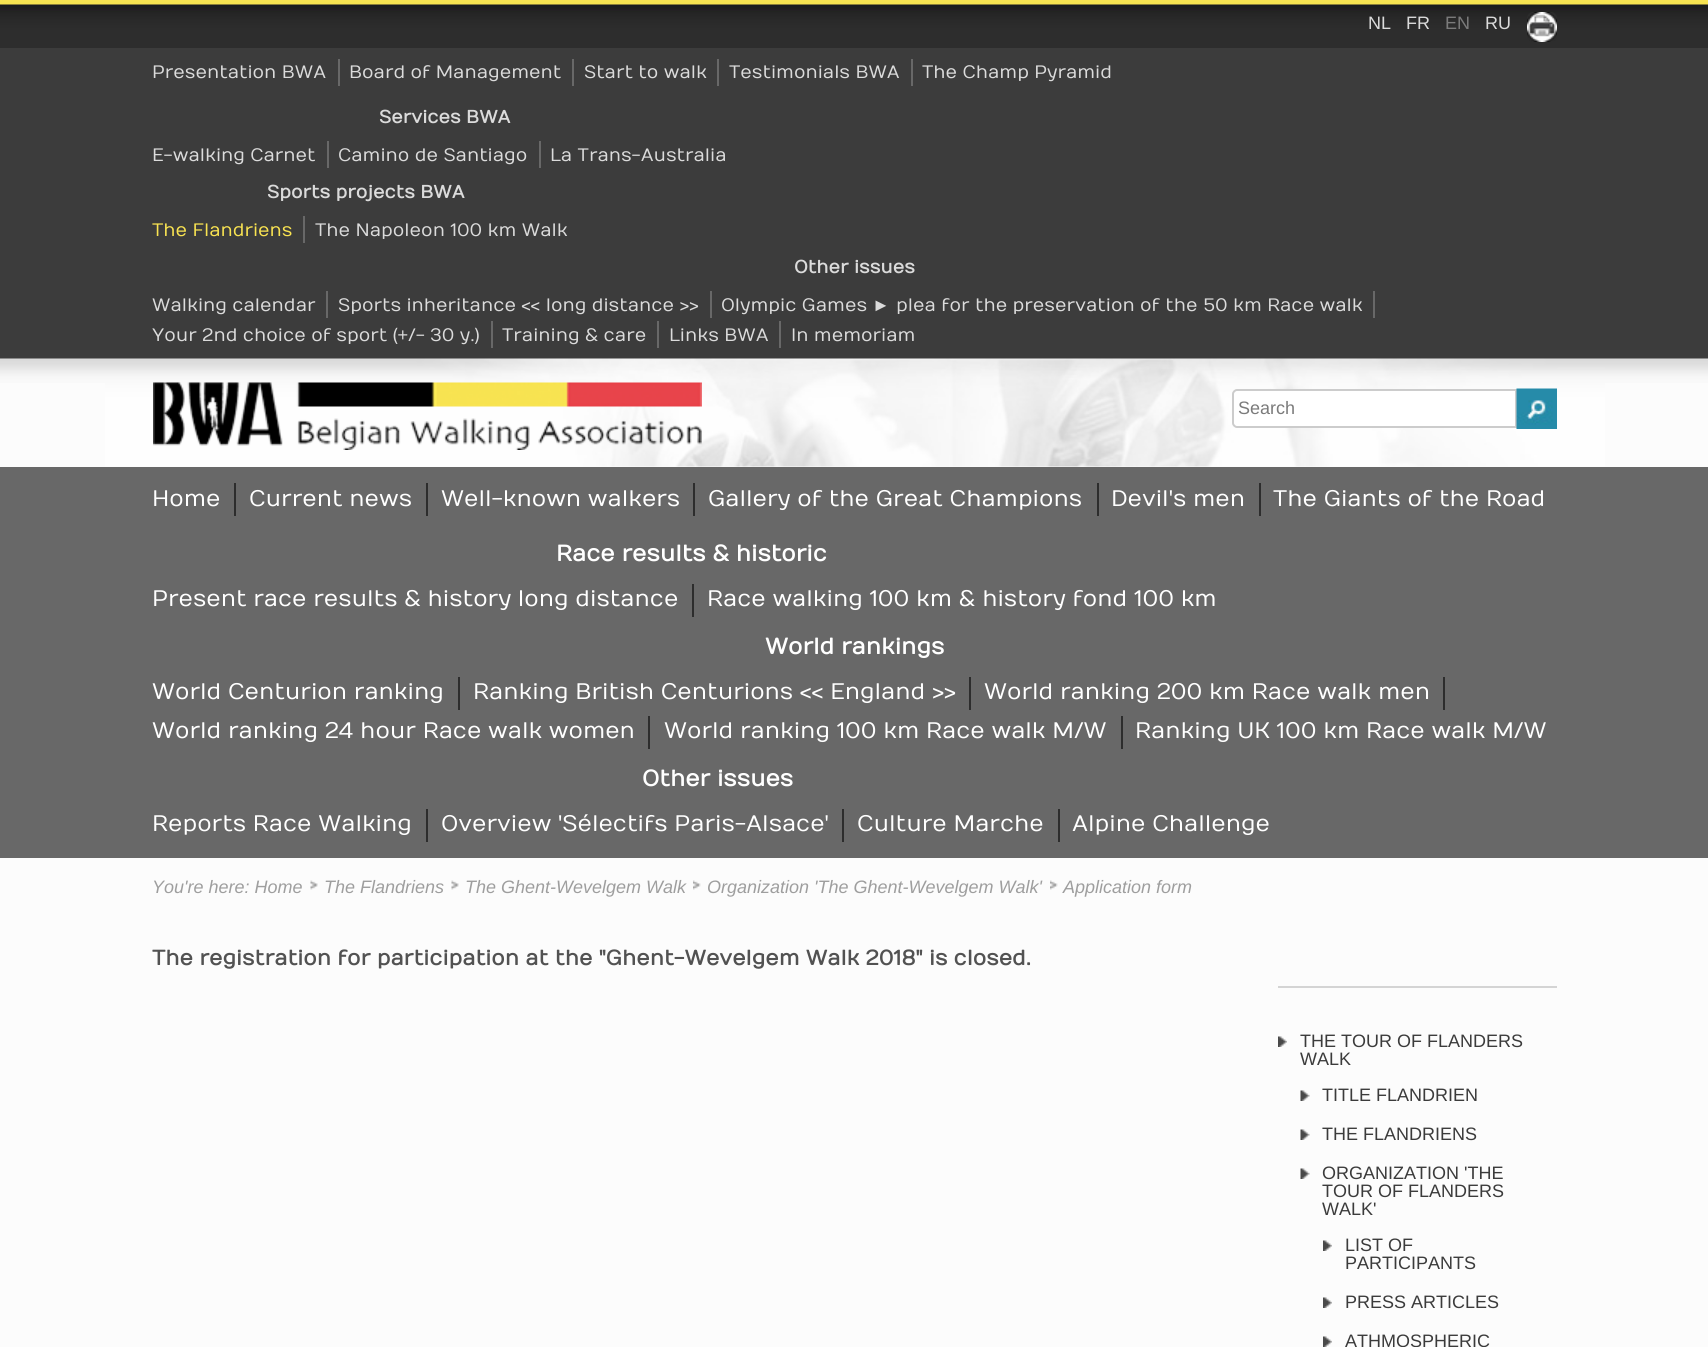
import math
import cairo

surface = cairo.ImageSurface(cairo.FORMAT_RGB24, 1708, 1347)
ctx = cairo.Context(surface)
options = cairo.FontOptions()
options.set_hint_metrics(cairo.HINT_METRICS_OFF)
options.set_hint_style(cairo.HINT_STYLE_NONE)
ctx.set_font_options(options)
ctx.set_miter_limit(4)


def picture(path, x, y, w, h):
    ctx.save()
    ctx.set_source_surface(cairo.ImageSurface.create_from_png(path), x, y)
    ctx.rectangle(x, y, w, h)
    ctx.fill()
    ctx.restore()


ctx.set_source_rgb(0.988, 0.988, 0.988)
ctx.paint()
picture("img1.png", 0, 0, 1708, 48)
ctx.select_font_face("Liberation Sans")
ctx.set_font_size(18)
ctx.set_source_rgb(0.859, 0.859, 0.859)
ctx.move_to(1368, 29)
ctx.show_text("NL")
ctx.move_to(1406, 29)
ctx.show_text("FR")
ctx.set_source_rgb(0.482, 0.482, 0.482)
ctx.move_to(1445, 29)
ctx.show_text("EN")
ctx.set_source_rgb(0.859, 0.859, 0.859)
ctx.move_to(1485, 29)
ctx.show_text("RU")
picture("img2.png", 1527, 12, 30, 30)
ctx.set_source_rgb(0.235, 0.235, 0.235)
ctx.rectangle(0, 48, 1708, 311)
ctx.fill()
picture("img3.png", 0, 358, 1708, 25)
ctx.rectangle(105, 358, 1500, 1)
ctx.fill()
ctx.set_source_rgb(0.408, 0.408, 0.408)
ctx.rectangle(338, 59, 2, 27)
ctx.fill()
ctx.select_font_face("Numans")
ctx.set_source_rgb(0.859, 0.859, 0.859)
ctx.move_to(152, 78)
ctx.show_text("Presentation BWA")
ctx.set_source_rgb(0.408, 0.408, 0.408)
ctx.rectangle(572, 59, 2, 27)
ctx.fill()
ctx.set_source_rgb(0.859, 0.859, 0.859)
ctx.move_to(349, 78)
ctx.show_text("Board of Management")
ctx.set_source_rgb(0.408, 0.408, 0.408)
ctx.rectangle(717, 59, 2, 27)
ctx.fill()
ctx.set_source_rgb(0.859, 0.859, 0.859)
ctx.move_to(584, 78)
ctx.show_text("Start to walk")
ctx.set_source_rgb(0.408, 0.408, 0.408)
ctx.rectangle(911, 59, 2, 27)
ctx.fill()
ctx.set_source_rgb(0.859, 0.859, 0.859)
ctx.move_to(729, 78)
ctx.show_text("Testimonials BWA")
ctx.move_to(922, 78)
ctx.show_text("The Champ Pyramid")
ctx.select_font_face("Numans", cairo.FONT_SLANT_NORMAL, cairo.FONT_WEIGHT_BOLD)
ctx.move_to(379, 123)
ctx.show_text("Services BWA")
ctx.set_source_rgb(0.408, 0.408, 0.408)
ctx.rectangle(327, 141, 2, 27)
ctx.fill()
ctx.select_font_face("Numans")
ctx.set_source_rgb(0.859, 0.859, 0.859)
ctx.move_to(152, 161)
ctx.show_text("E-walking Carnet")
ctx.set_source_rgb(0.408, 0.408, 0.408)
ctx.rectangle(539, 141, 2, 27)
ctx.fill()
ctx.set_source_rgb(0.859, 0.859, 0.859)
ctx.move_to(338, 161)
ctx.show_text("Camino de Santiago")
ctx.move_to(550, 161)
ctx.show_text("La Trans-Australia")
ctx.select_font_face("Numans", cairo.FONT_SLANT_NORMAL, cairo.FONT_WEIGHT_BOLD)
ctx.move_to(267, 198)
ctx.show_text("Sports projects BWA")
ctx.set_source_rgb(0.408, 0.408, 0.408)
ctx.rectangle(303, 216, 2, 27)
ctx.fill()
ctx.select_font_face("Numans")
ctx.set_source_rgb(0.973, 0.89, 0.318)
ctx.move_to(152, 236)
ctx.show_text("The Flandriens")
ctx.set_source_rgb(0.859, 0.859, 0.859)
ctx.move_to(315, 236)
ctx.show_text("The Napoleon 100 km Walk")
ctx.select_font_face("Numans", cairo.FONT_SLANT_NORMAL, cairo.FONT_WEIGHT_BOLD)
ctx.move_to(794, 273)
ctx.show_text("Other issues")
ctx.set_source_rgb(0.408, 0.408, 0.408)
ctx.rectangle(326, 291, 2, 27)
ctx.fill()
ctx.select_font_face("Numans")
ctx.set_source_rgb(0.859, 0.859, 0.859)
ctx.move_to(152, 311)
ctx.show_text("Walking calendar")
ctx.set_source_rgb(0.408, 0.408, 0.408)
ctx.rectangle(710, 291, 2, 27)
ctx.fill()
ctx.set_source_rgb(0.859, 0.859, 0.859)
ctx.move_to(338, 311)
ctx.show_text("Sports inheritance << long distance >>")
ctx.set_source_rgb(0.408, 0.408, 0.408)
ctx.rectangle(1373, 291, 2, 27)
ctx.fill()
ctx.set_source_rgb(0.859, 0.859, 0.859)
ctx.move_to(721, 311)
ctx.show_text("Olympic Games")
ctx.select_font_face("Liberation Sans")
ctx.move_to(872, 311)
ctx.show_text("►")
ctx.select_font_face("Numans")
ctx.move_to(896, 311)
ctx.show_text("plea for the preservation of the 50 km Race walk")
ctx.set_source_rgb(0.408, 0.408, 0.408)
ctx.rectangle(491, 321, 2, 27)
ctx.fill()
ctx.set_source_rgb(0.859, 0.859, 0.859)
ctx.move_to(152, 341)
ctx.show_text("Your 2nd choice of sport (+/- 30 y.)")
ctx.set_source_rgb(0.408, 0.408, 0.408)
ctx.rectangle(657, 321, 2, 27)
ctx.fill()
ctx.set_source_rgb(0.859, 0.859, 0.859)
ctx.move_to(502, 341)
ctx.show_text("Training & care")
ctx.set_source_rgb(0.408, 0.408, 0.408)
ctx.rectangle(779, 321, 2, 27)
ctx.fill()
ctx.set_source_rgb(0.859, 0.859, 0.859)
ctx.move_to(669, 341)
ctx.show_text("Links BWA")
ctx.move_to(791, 341)
ctx.show_text("In memoriam")
picture("img4.png", 105, 358, 1500, 109)
picture("img5.png", 153, 382, 549, 68)
ctx.set_source_rgb(1, 1, 1)
ctx.new_path()
ctx.move_to(1237, 390)
ctx.line_to(1516, 390)
ctx.line_to(1516, 427)
ctx.line_to(1237, 427)
ctx.curve_to(1235, 427, 1233, 425, 1233, 423)
ctx.line_to(1233, 394)
ctx.curve_to(1233, 392, 1235, 390, 1237, 390)
ctx.close_path()
ctx.fill_preserve()
ctx.set_source_rgb(0.8, 0.8, 0.8)
ctx.stroke()
ctx.select_font_face("Liberation Sans")
ctx.set_source_rgb(0.482, 0.482, 0.482)
ctx.move_to(1238, 414)
ctx.show_text("Search")
picture("img6.png", 1516, 388, 41, 41)
ctx.set_source_rgb(0.408, 0.408, 0.408)
ctx.rectangle(0, 467, 1708, 391)
ctx.fill()
ctx.set_source_rgb(0.176, 0.176, 0.176)
ctx.rectangle(234, 483, 2, 33)
ctx.fill()
ctx.select_font_face("Numans")
ctx.set_font_size(22.5)
ctx.set_source_rgb(1, 1, 1)
ctx.move_to(152, 506)
ctx.show_text("Home")
ctx.set_source_rgb(0.176, 0.176, 0.176)
ctx.rectangle(426, 483, 2, 33)
ctx.fill()
ctx.set_source_rgb(1, 1, 1)
ctx.move_to(249, 506)
ctx.show_text("Current news")
ctx.set_source_rgb(0.176, 0.176, 0.176)
ctx.rectangle(693, 483, 2, 33)
ctx.fill()
ctx.set_source_rgb(1, 1, 1)
ctx.move_to(441, 506)
ctx.show_text("Well-known walkers")
ctx.set_source_rgb(0.176, 0.176, 0.176)
ctx.rectangle(1097, 483, 2, 33)
ctx.fill()
ctx.set_source_rgb(1, 1, 1)
ctx.move_to(708, 506)
ctx.show_text("Gallery of the Great Champions")
ctx.set_source_rgb(0.176, 0.176, 0.176)
ctx.rectangle(1259, 483, 2, 33)
ctx.fill()
ctx.set_source_rgb(1, 1, 1)
ctx.move_to(1111, 506)
ctx.show_text("Devil's men")
ctx.move_to(1273, 506)
ctx.show_text("The Giants of the Road")
ctx.select_font_face("Numans", cairo.FONT_SLANT_NORMAL, cairo.FONT_WEIGHT_BOLD)
ctx.move_to(556, 561)
ctx.show_text("Race results & historic")
ctx.set_source_rgb(0.176, 0.176, 0.176)
ctx.rectangle(692, 584, 2, 33)
ctx.fill()
ctx.select_font_face("Numans")
ctx.set_source_rgb(1, 1, 1)
ctx.move_to(152, 606)
ctx.show_text("Present race results & history long distance")
ctx.move_to(707, 606)
ctx.show_text("Race walking 100 km & history fond 100 km")
ctx.select_font_face("Numans", cairo.FONT_SLANT_NORMAL, cairo.FONT_WEIGHT_BOLD)
ctx.move_to(765, 654)
ctx.show_text("World rankings")
ctx.set_source_rgb(0.176, 0.176, 0.176)
ctx.rectangle(458, 677, 2, 33)
ctx.fill()
ctx.select_font_face("Numans")
ctx.set_source_rgb(1, 1, 1)
ctx.move_to(152, 699)
ctx.show_text("World Centurion ranking")
ctx.set_source_rgb(0.176, 0.176, 0.176)
ctx.rectangle(969, 677, 2, 33)
ctx.fill()
ctx.set_source_rgb(1, 1, 1)
ctx.move_to(473, 699)
ctx.show_text("Ranking British Centurions << England >>")
ctx.set_source_rgb(0.176, 0.176, 0.176)
ctx.rectangle(1443, 677, 2, 33)
ctx.fill()
ctx.set_source_rgb(1, 1, 1)
ctx.move_to(984, 699)
ctx.show_text("World ranking 200 km Race walk men")
ctx.set_source_rgb(0.176, 0.176, 0.176)
ctx.rectangle(648, 716, 2, 33)
ctx.fill()
ctx.set_source_rgb(1, 1, 1)
ctx.move_to(152, 738)
ctx.show_text("World ranking 24 hour Race walk women")
ctx.set_source_rgb(0.176, 0.176, 0.176)
ctx.rectangle(1121, 716, 2, 33)
ctx.fill()
ctx.set_source_rgb(1, 1, 1)
ctx.move_to(664, 738)
ctx.show_text("World ranking 100 km Race walk M/W")
ctx.move_to(1135, 738)
ctx.show_text("Ranking UK 100 km Race walk M/W")
ctx.select_font_face("Numans", cairo.FONT_SLANT_NORMAL, cairo.FONT_WEIGHT_BOLD)
ctx.move_to(642, 786)
ctx.show_text("Other issues")
ctx.set_source_rgb(0.176, 0.176, 0.176)
ctx.rectangle(426, 809, 2, 33)
ctx.fill()
ctx.select_font_face("Numans")
ctx.set_source_rgb(1, 1, 1)
ctx.move_to(152, 831)
ctx.show_text("Reports Race Walking")
ctx.set_source_rgb(0.176, 0.176, 0.176)
ctx.rectangle(842, 809, 2, 33)
ctx.fill()
ctx.set_source_rgb(1, 1, 1)
ctx.move_to(441, 831)
ctx.show_text("Overview 'Sélectifs Paris-Alsace'")
ctx.set_source_rgb(0.176, 0.176, 0.176)
ctx.rectangle(1058, 809, 2, 33)
ctx.fill()
ctx.set_source_rgb(1, 1, 1)
ctx.move_to(857, 831)
ctx.show_text("Culture Marche")
ctx.move_to(1072, 831)
ctx.show_text("Alpine Challenge")
ctx.select_font_face("Liberation Sans", cairo.FONT_SLANT_ITALIC)
ctx.set_font_size(18)
ctx.set_source_rgb(0.62, 0.62, 0.62)
ctx.move_to(152, 893)
ctx.show_text("You're here: Home")
picture("img7.png", 310, 880, 8, 10)
ctx.move_to(324, 893)
ctx.show_text("The Flandriens")
picture("img7.png", 451, 880, 8, 10)
ctx.move_to(465, 893)
ctx.show_text("The Ghent-Wevelgem Walk")
picture("img8.png", 693, 880, 8, 10)
ctx.move_to(707, 893)
ctx.show_text("Organization 'The Ghent-Wevelgem Walk'")
picture("img9.png", 1050, 880, 8, 10)
ctx.move_to(1063, 893)
ctx.show_text("Application form")
ctx.select_font_face("Numans", cairo.FONT_SLANT_NORMAL, cairo.FONT_WEIGHT_BOLD)
ctx.set_font_size(21)
ctx.set_source_rgb(0.322, 0.322, 0.322)
ctx.move_to(152, 965)
ctx.show_text("The registration for participation at the \"Ghent-Wevelgem Walk 2018\" is closed.")
ctx.set_source_rgb(0.831, 0.831, 0.831)
ctx.rectangle(1278, 986, 279, 2)
ctx.fill()
picture("img10.png", 1278, 1036, 9, 11)
ctx.select_font_face("Liberation Sans")
ctx.set_font_size(18)
ctx.set_source_rgb(0.231, 0.231, 0.231)
ctx.move_to(1300, 1047)
ctx.show_text("THE TOUR OF FLANDERS")
ctx.move_to(1300, 1065)
ctx.show_text("WALK")
picture("img11.png", 1300, 1090, 10, 11)
ctx.move_to(1322, 1101)
ctx.show_text("TITLE FLANDRIEN")
picture("img11.png", 1300, 1129, 10, 11)
ctx.move_to(1322, 1140)
ctx.show_text("THE FLANDRIENS")
picture("img11.png", 1300, 1168, 10, 11)
ctx.move_to(1322, 1179)
ctx.show_text("ORGANIZATION 'THE")
ctx.move_to(1322, 1197)
ctx.show_text("TOUR OF FLANDERS")
ctx.move_to(1322, 1215)
ctx.show_text("WALK'")
picture("img12.png", 1323, 1240, 9, 11)
ctx.move_to(1345, 1251)
ctx.show_text("LIST OF")
ctx.move_to(1345, 1269)
ctx.show_text("PARTICIPANTS")
picture("img12.png", 1323, 1297, 9, 11)
ctx.move_to(1345, 1308)
ctx.show_text("PRESS ARTICLES")
picture("img12.png", 1323, 1336, 9, 11)
ctx.move_to(1345, 1347)
ctx.show_text("ATHMOSPHERIC")
surface.write_to_png("page.png")
